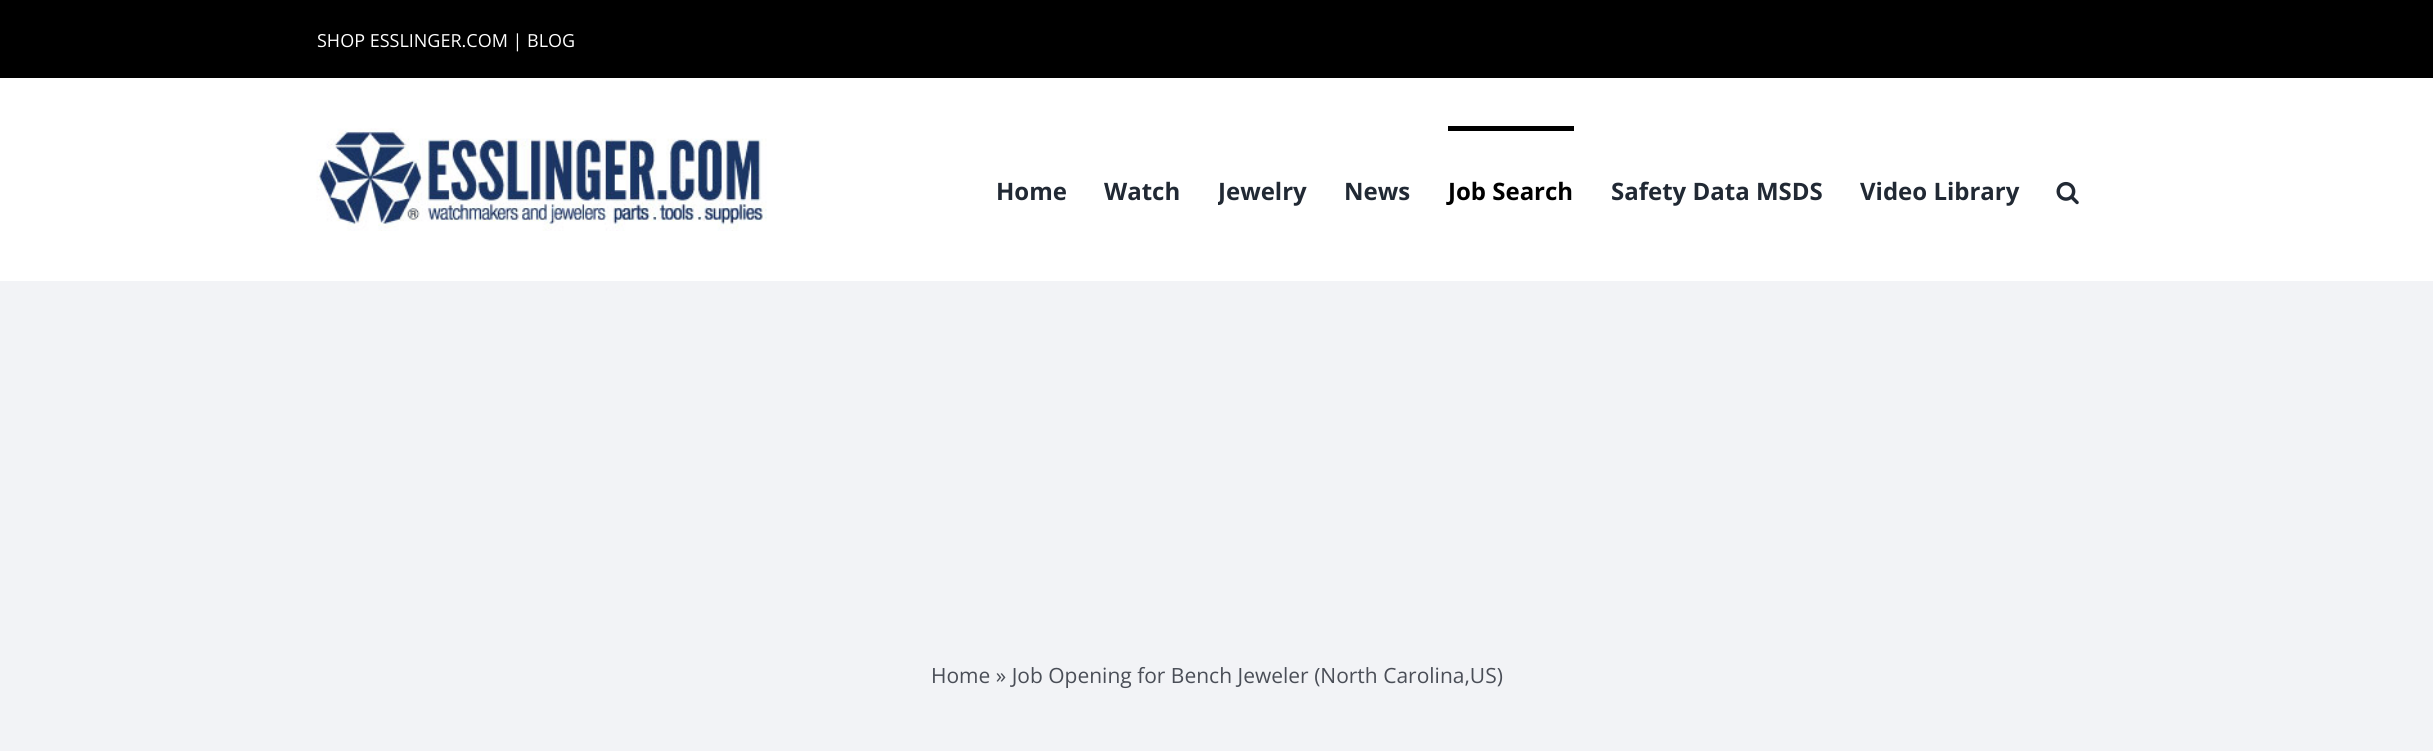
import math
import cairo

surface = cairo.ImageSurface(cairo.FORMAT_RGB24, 2433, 751)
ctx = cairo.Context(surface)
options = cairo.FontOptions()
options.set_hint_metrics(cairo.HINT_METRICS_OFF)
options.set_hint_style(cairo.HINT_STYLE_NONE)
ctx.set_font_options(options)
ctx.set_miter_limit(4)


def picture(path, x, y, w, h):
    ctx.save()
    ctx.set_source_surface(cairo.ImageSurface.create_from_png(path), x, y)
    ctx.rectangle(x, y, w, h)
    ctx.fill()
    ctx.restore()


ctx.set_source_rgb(1, 1, 1)
ctx.paint()
ctx.set_source_rgb(0, 0, 0)
ctx.rectangle(0, 0, 2433, 78)
ctx.fill()
ctx.select_font_face("Open Sans")
ctx.set_font_size(18)
ctx.set_source_rgb(1, 1, 1)
ctx.move_to(317, 47)
ctx.show_text("SHOP ESSLINGER.COM | BLOG")
picture("img1.png", 316, 128, 451, 103)
ctx.select_font_face("Open Sans", cairo.FONT_SLANT_NORMAL, cairo.FONT_WEIGHT_BOLD)
ctx.set_font_size(24)
ctx.set_source_rgb(0.129, 0.161, 0.204)
ctx.move_to(996, 200)
ctx.show_text("Home")
ctx.move_to(1104, 200)
ctx.show_text("Watch")
ctx.save()
ctx.rectangle(1218, 89, 126, 163)
ctx.clip()
ctx.move_to(1218, 200)
ctx.show_text("Jewelry")
ctx.restore()
ctx.move_to(1344, 200)
ctx.show_text("News")
ctx.set_source_rgb(0, 0, 0)
ctx.rectangle(1448, 126, 126, 5)
ctx.fill()
ctx.move_to(1448, 200)
ctx.show_text("Job Search")
ctx.set_source_rgb(0.129, 0.161, 0.204)
ctx.move_to(1611, 200)
ctx.show_text("Safety Data MSDS")
ctx.move_to(1860, 200)
ctx.show_text("Video Library")
picture("img2.png", 2056, 181, 23, 24)
ctx.set_source_rgb(0.949, 0.953, 0.961)
ctx.rectangle(0, 281, 2433, 470)
ctx.fill()
ctx.select_font_face("Open Sans")
ctx.set_font_size(21)
ctx.set_source_rgb(0.29, 0.306, 0.341)
ctx.move_to(931, 683)
ctx.show_text("Home » Job Opening for Bench Jeweler (North Carolina,US)")
surface.write_to_png("page.png")
